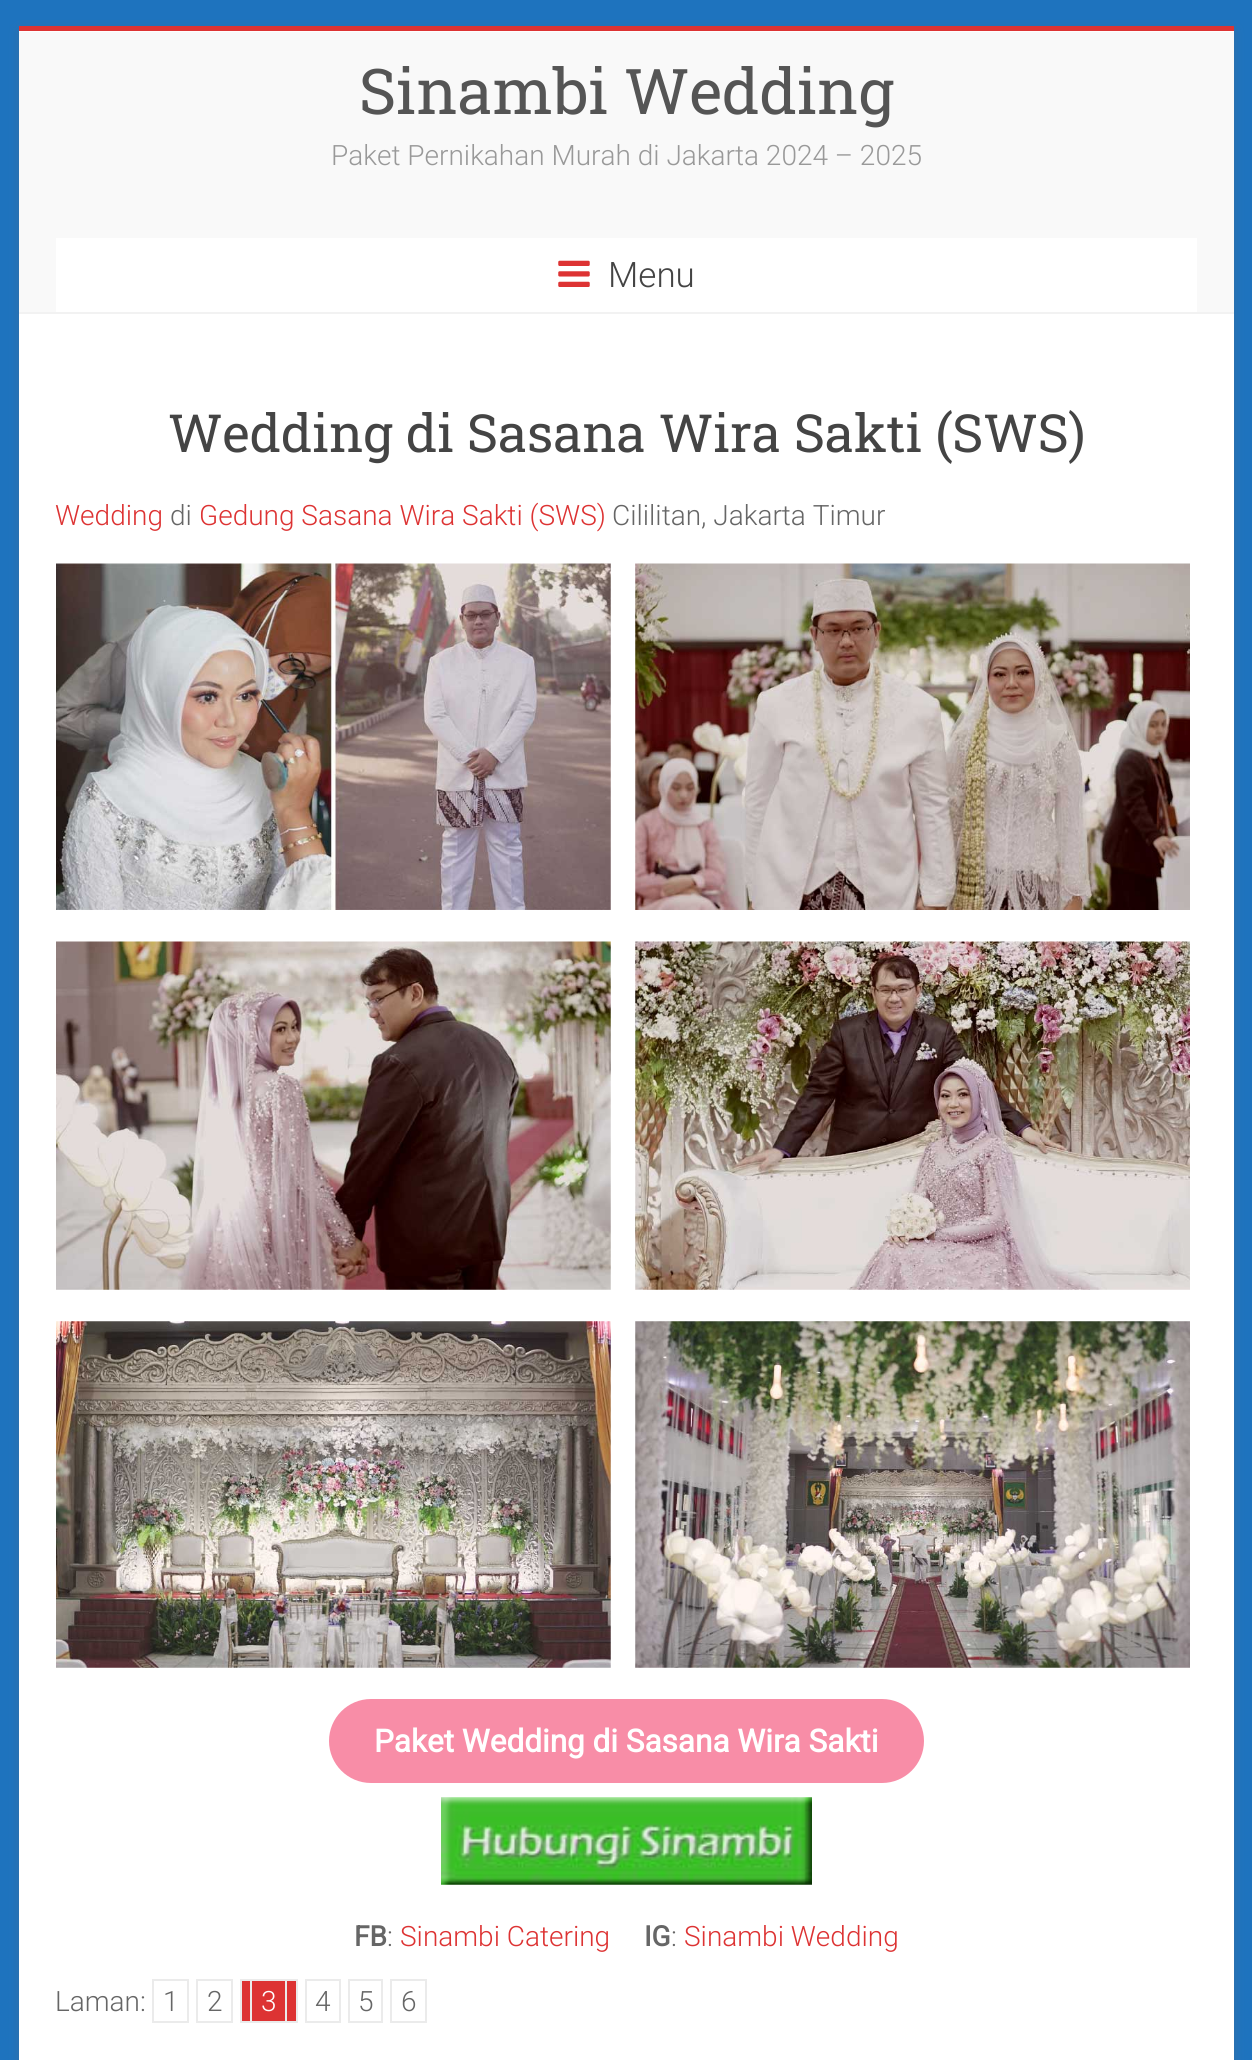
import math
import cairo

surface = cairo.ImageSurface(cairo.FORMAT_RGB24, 1252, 2060)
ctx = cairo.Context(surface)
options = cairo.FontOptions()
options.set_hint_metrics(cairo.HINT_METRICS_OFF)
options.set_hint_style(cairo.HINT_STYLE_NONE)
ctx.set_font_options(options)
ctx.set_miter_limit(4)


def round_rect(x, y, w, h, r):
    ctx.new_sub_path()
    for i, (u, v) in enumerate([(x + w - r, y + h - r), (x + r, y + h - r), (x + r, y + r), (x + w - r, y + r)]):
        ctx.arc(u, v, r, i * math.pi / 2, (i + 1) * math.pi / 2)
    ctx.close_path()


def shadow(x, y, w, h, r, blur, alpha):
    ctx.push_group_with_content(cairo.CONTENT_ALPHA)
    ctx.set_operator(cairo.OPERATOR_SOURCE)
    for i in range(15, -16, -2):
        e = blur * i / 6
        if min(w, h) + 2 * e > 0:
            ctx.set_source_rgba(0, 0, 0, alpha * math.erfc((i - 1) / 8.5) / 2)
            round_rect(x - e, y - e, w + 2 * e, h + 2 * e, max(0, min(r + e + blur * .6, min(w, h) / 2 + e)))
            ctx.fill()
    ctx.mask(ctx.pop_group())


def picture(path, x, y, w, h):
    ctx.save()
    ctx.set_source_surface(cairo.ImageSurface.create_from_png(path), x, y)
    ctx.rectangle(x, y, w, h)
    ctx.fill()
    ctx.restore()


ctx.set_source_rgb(0.118, 0.451, 0.745)
ctx.paint()
ctx.set_source_rgb(0.392, 0.392, 0.392)
shadow(19, 30, 1215, 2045, 0, 5, 0.3)
ctx.set_source_rgb(1, 1, 1)
ctx.rectangle(19, 31, 1215, 2029)
ctx.fill()
ctx.set_source_rgb(0.867, 0.2, 0.2)
ctx.rectangle(19, 26, 1215, 5)
ctx.fill()
ctx.set_source_rgb(0.973, 0.973, 0.973)
ctx.rectangle(19, 32, 1215, 280)
ctx.fill()
ctx.set_source_rgb(0.949, 0.949, 0.949)
ctx.rectangle(19, 312, 1215, 2)
ctx.fill()
ctx.select_font_face("Roboto Slab")
ctx.set_font_size(63)
ctx.set_source_rgb(0.333, 0.333, 0.333)
ctx.move_to(359, 114)
ctx.show_text("Sinambi Wedding")
ctx.select_font_face("Roboto Light")
ctx.set_font_size(28)
ctx.set_source_rgb(0.6, 0.6, 0.6)
ctx.move_to(331, 165)
ctx.show_text("Paket Pernikahan Murah di Jakarta 2024 – 2025")
ctx.set_source_rgb(1, 1, 1)
ctx.rectangle(56, 238, 1141, 74)
ctx.fill()
picture("img1.png", 558, 260, 32, 27)
ctx.set_font_size(35)
ctx.set_source_rgb(0.267, 0.267, 0.267)
ctx.move_to(608, 287)
ctx.show_text("Menu")
ctx.select_font_face("Roboto Slab")
ctx.set_font_size(52.5)
ctx.move_to(168, 452)
ctx.show_text("Wedding di Sasana Wira Sakti (SWS)")
ctx.select_font_face("Roboto Light")
ctx.set_font_size(28)
ctx.set_source_rgb(0.867, 0.2, 0.2)
ctx.move_to(55, 525)
ctx.show_text("Wedding")
ctx.set_source_rgb(0.4, 0.4, 0.4)
ctx.move_to(170, 525)
ctx.show_text("di")
ctx.set_source_rgb(0.867, 0.2, 0.2)
ctx.move_to(199, 525)
ctx.show_text("Gedung Sasana Wira Sakti (SWS)")
ctx.set_source_rgb(0.4, 0.4, 0.4)
ctx.move_to(612, 525)
ctx.show_text("Cililitan, Jakarta Timur")
picture("img2.png", 56, 563, 555, 347)
picture("img3.png", 635, 563, 555, 347)
picture("img4.png", 56, 941, 555, 349)
picture("img5.png", 635, 941, 555, 349)
picture("img6.png", 56, 1321, 555, 347)
picture("img7.png", 635, 1321, 555, 347)
ctx.set_source_rgb(0.969, 0.553, 0.655)
round_rect(329, 1699, 595, 84, 42)
ctx.fill()
ctx.select_font_face("Roboto", cairo.FONT_SLANT_NORMAL, cairo.FONT_WEIGHT_BOLD)
ctx.set_font_size(31.5)
ctx.set_source_rgb(1, 1, 1)
ctx.move_to(374, 1752)
ctx.show_text("Paket Wedding di Sasana Wira Sakti")
picture("img8.png", 441, 1797, 371, 88)
ctx.set_font_size(28)
ctx.set_source_rgb(0.4, 0.4, 0.4)
ctx.move_to(354, 1946)
ctx.show_text("FB")
ctx.select_font_face("Roboto Light")
ctx.move_to(387, 1946)
ctx.show_text(":")
ctx.set_source_rgb(0.867, 0.2, 0.2)
ctx.move_to(400, 1946)
ctx.show_text("Sinambi Catering")
ctx.select_font_face("Roboto", cairo.FONT_SLANT_NORMAL, cairo.FONT_WEIGHT_BOLD)
ctx.set_source_rgb(0.4, 0.4, 0.4)
ctx.move_to(644, 1946)
ctx.show_text("IG")
ctx.select_font_face("Roboto Light")
ctx.move_to(671, 1946)
ctx.show_text(":")
ctx.set_source_rgb(0.867, 0.2, 0.2)
ctx.move_to(684, 1946)
ctx.show_text("Sinambi Wedding")
ctx.set_source_rgb(0.4, 0.4, 0.4)
ctx.move_to(55, 2011)
ctx.show_text("Laman:")
ctx.rectangle(153, 1980, 35, 42)
ctx.set_source_rgb(0.918, 0.918, 0.918)
ctx.stroke()
ctx.set_source_rgb(0.4, 0.4, 0.4)
ctx.move_to(163, 2011)
ctx.show_text("1")
ctx.rectangle(197, 1980, 35, 42)
ctx.set_source_rgb(0.918, 0.918, 0.918)
ctx.stroke()
ctx.set_source_rgb(0.4, 0.4, 0.4)
ctx.move_to(207, 2011)
ctx.show_text("2")
ctx.set_source_rgb(0.867, 0.2, 0.2)
ctx.rectangle(241, 1980, 56, 42)
ctx.fill_preserve()
ctx.set_source_rgb(0.918, 0.918, 0.918)
ctx.stroke()
ctx.rectangle(251, 1980, 35, 42)
ctx.stroke()
ctx.set_source_rgb(1, 1, 1)
ctx.move_to(261, 2011)
ctx.show_text("3")
ctx.rectangle(306, 1980, 34, 42)
ctx.set_source_rgb(0.918, 0.918, 0.918)
ctx.stroke()
ctx.set_source_rgb(0.4, 0.4, 0.4)
ctx.move_to(315, 2011)
ctx.show_text("4")
ctx.rectangle(349, 1980, 33, 42)
ctx.set_source_rgb(0.918, 0.918, 0.918)
ctx.stroke()
ctx.set_source_rgb(0.4, 0.4, 0.4)
ctx.move_to(358, 2011)
ctx.show_text("5")
ctx.rectangle(391, 1980, 35, 42)
ctx.set_source_rgb(0.918, 0.918, 0.918)
ctx.stroke()
ctx.set_source_rgb(0.4, 0.4, 0.4)
ctx.move_to(401, 2011)
ctx.show_text("6")
surface.write_to_png("page.png")
